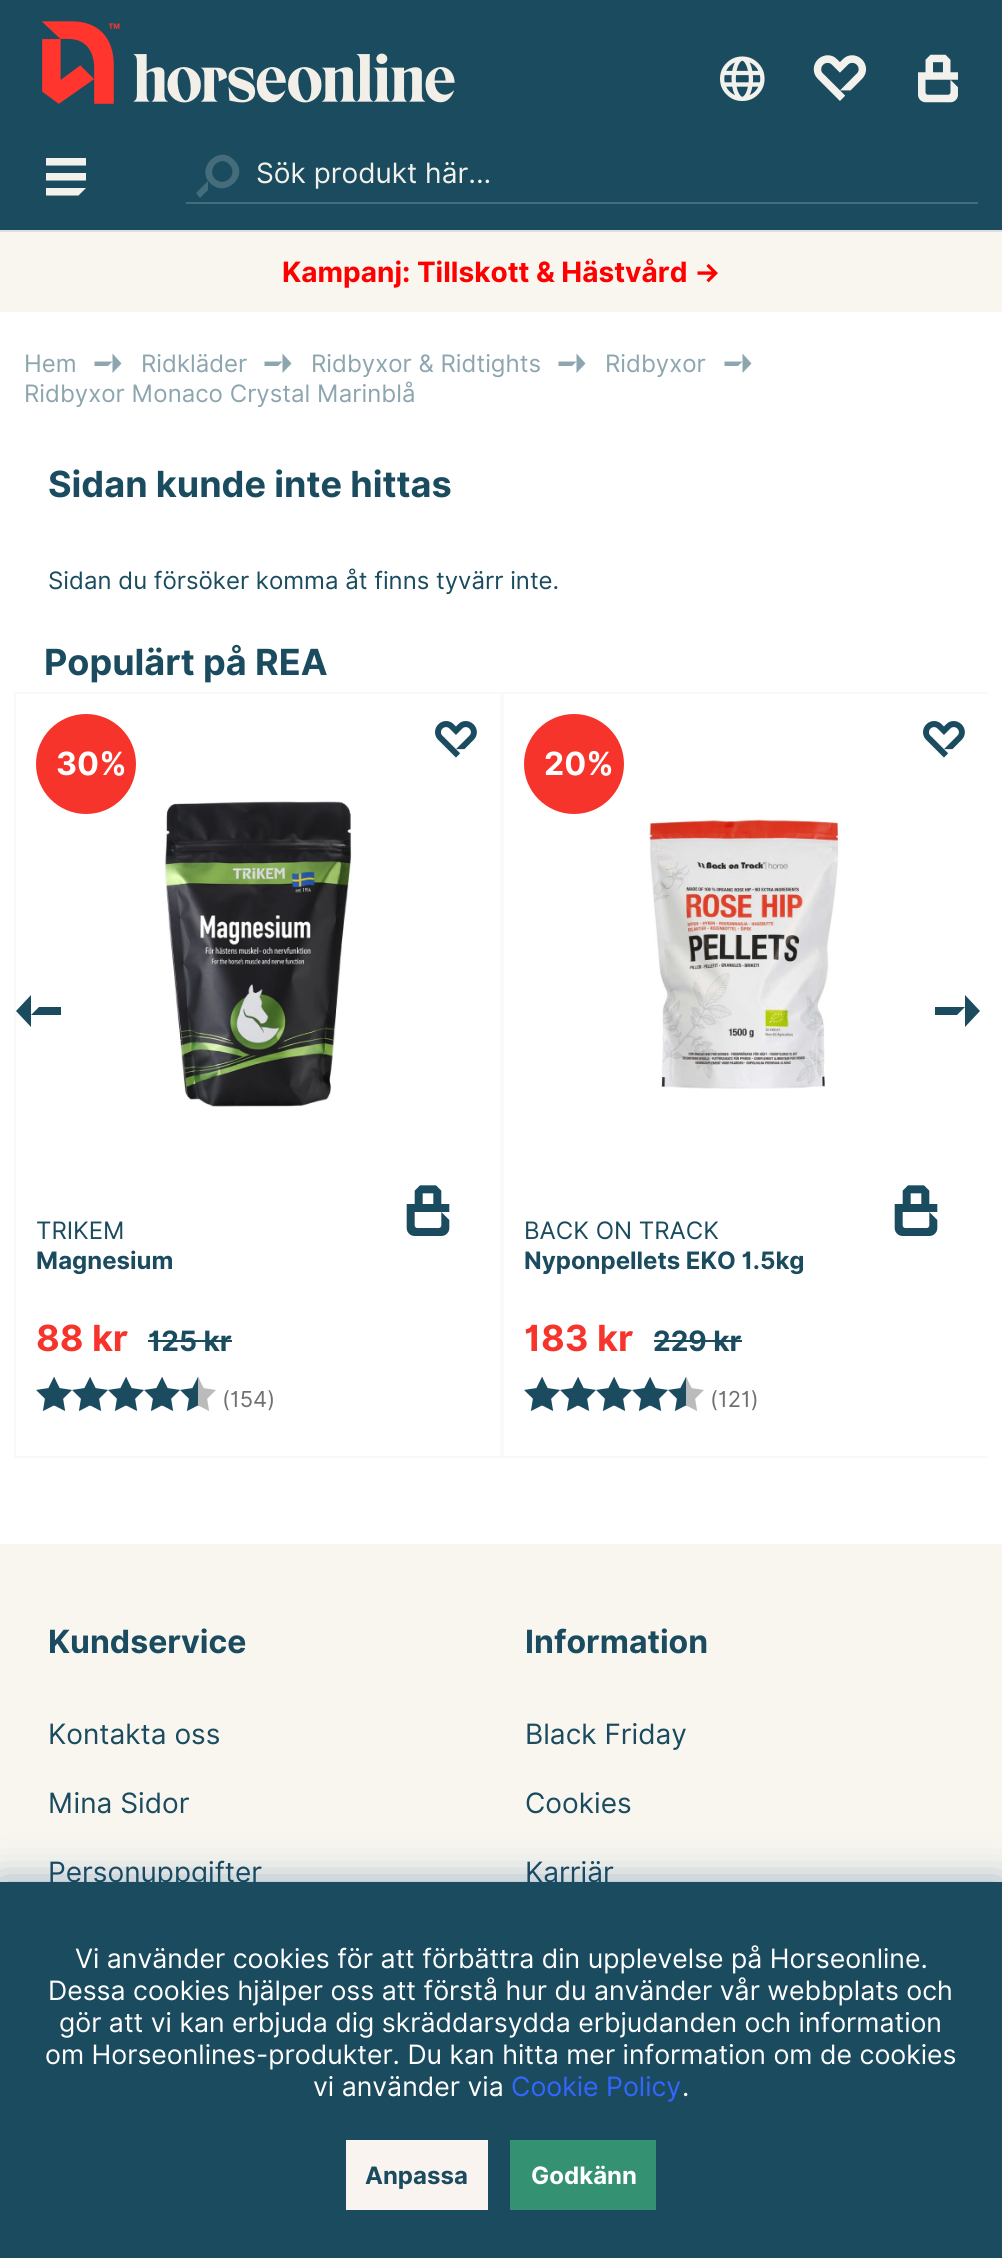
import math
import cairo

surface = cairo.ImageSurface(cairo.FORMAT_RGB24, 1002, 2258)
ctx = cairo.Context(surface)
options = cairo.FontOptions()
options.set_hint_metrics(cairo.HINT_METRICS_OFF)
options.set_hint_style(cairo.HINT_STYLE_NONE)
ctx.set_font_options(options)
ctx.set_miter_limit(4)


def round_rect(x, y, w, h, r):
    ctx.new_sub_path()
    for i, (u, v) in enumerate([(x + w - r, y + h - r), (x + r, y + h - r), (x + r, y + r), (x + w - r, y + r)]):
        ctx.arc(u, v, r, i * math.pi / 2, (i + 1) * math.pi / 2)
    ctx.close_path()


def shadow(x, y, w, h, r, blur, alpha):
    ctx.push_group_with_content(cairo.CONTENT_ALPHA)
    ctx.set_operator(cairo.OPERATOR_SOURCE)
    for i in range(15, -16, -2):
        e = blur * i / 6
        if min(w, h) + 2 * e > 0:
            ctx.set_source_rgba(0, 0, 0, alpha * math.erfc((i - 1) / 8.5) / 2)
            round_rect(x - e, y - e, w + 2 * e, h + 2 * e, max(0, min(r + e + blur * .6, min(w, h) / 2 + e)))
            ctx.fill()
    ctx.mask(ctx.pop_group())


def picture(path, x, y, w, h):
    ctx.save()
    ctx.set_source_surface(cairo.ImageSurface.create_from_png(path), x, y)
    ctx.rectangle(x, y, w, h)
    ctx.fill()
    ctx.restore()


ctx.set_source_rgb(1, 1, 1)
ctx.paint()
ctx.set_source_rgb(0.102, 0.294, 0.373)
ctx.rectangle(0, 0, 1002, 230)
ctx.fill()
ctx.set_source_rgb(0.867, 0.867, 0.867)
ctx.rectangle(0, 230, 1002, 2)
ctx.fill()
picture("img1.png", 41, 21, 79, 83)
picture("img2.png", 133, 53, 322, 50)
picture("img3.png", 720, 56, 45, 45)
picture("img4.png", 813, 55, 54, 46)
picture("img5.png", 918, 54, 40, 49)
ctx.set_source_rgb(0.949, 0.945, 0.925)
ctx.new_path()
ctx.move_to(86, 188)
ctx.line_to(78.5, 195.5)
ctx.line_to(46, 195.5)
ctx.line_to(46, 188)
ctx.close_path()
ctx.move_to(86, 173)
ctx.line_to(86, 180.5)
ctx.line_to(46, 180.5)
ctx.line_to(46, 173)
ctx.close_path()
ctx.move_to(86, 158)
ctx.line_to(86, 165.5)
ctx.line_to(46, 165.5)
ctx.line_to(46, 158)
ctx.close_path()
ctx.fill()
ctx.set_source_rgb(0.271, 0.424, 0.482)
ctx.new_path()
ctx.move_to(208, 181)
ctx.line_to(208, 190)
ctx.line_to(200, 198)
ctx.line_to(196, 193)
ctx.close_path()
ctx.move_to(234, 160)
ctx.curve_to(250, 175, 226, 199, 210, 183)
ctx.curve_to(195, 168, 219, 144, 234, 160)
ctx.close_path()
ctx.move_to(229, 164)
ctx.curve_to(220, 155, 206, 169, 215, 179)
ctx.curve_to(225, 188, 239, 174, 229, 164)
ctx.close_path()
ctx.fill()
ctx.rectangle(186, 202, 792, 2)
ctx.fill()
ctx.select_font_face("Inter")
ctx.set_font_size(28)
ctx.set_source_rgb(0.949, 0.945, 0.925)
ctx.move_to(256, 183)
ctx.show_text("Sök produkt här...")
ctx.set_source_rgb(0.973, 0.961, 0.937)
ctx.rectangle(0, 232, 1002, 80)
ctx.fill()
ctx.select_font_face("Inter", cairo.FONT_SLANT_NORMAL, cairo.FONT_WEIGHT_BOLD)
ctx.set_source_rgb(1, 0, 0)
ctx.move_to(282, 282)
ctx.show_text("Kampanj: Tillskott & Hästvård →")
ctx.select_font_face("Inter")
ctx.set_font_size(24)
ctx.set_source_rgb(0.549, 0.647, 0.686)
ctx.move_to(24, 372)
ctx.show_text("Hem")
ctx.new_path()
ctx.move_to(112.5, 353.5)
ctx.line_to(121.5, 363.5)
ctx.line_to(112.5, 373)
ctx.close_path()
ctx.move_to(112.5, 361.5)
ctx.line_to(108, 366)
ctx.line_to(94.5, 366)
ctx.line_to(94.5, 361.5)
ctx.close_path()
ctx.fill()
ctx.move_to(141, 372)
ctx.show_text("Ridkläder")
ctx.new_path()
ctx.move_to(282.5, 353.5)
ctx.line_to(291.5, 363.5)
ctx.line_to(282.5, 373)
ctx.close_path()
ctx.move_to(282.5, 361.5)
ctx.line_to(278, 366)
ctx.line_to(264.5, 366)
ctx.line_to(264.5, 361.5)
ctx.close_path()
ctx.fill()
ctx.move_to(311, 372)
ctx.show_text("Ridbyxor & Ridtights")
ctx.new_path()
ctx.move_to(576.5, 353.5)
ctx.line_to(585.5, 363.5)
ctx.line_to(576.5, 373)
ctx.close_path()
ctx.move_to(576.5, 361.5)
ctx.line_to(572, 366)
ctx.line_to(558.5, 366)
ctx.line_to(558.5, 361.5)
ctx.close_path()
ctx.fill()
ctx.move_to(605, 372)
ctx.show_text("Ridbyxor")
ctx.new_path()
ctx.move_to(742.5, 353.5)
ctx.line_to(751.5, 363.5)
ctx.line_to(742.5, 373)
ctx.close_path()
ctx.move_to(742.5, 361.5)
ctx.line_to(738, 366)
ctx.line_to(724.5, 366)
ctx.line_to(724.5, 361.5)
ctx.close_path()
ctx.fill()
ctx.move_to(24, 402)
ctx.show_text("Ridbyxor Monaco Crystal Marinblå")
ctx.select_font_face("Inter", cairo.FONT_SLANT_NORMAL, cairo.FONT_WEIGHT_BOLD)
ctx.set_font_size(36)
ctx.set_source_rgb(0.102, 0.294, 0.373)
ctx.move_to(48, 497)
ctx.show_text("Sidan kunde inte hittas")
ctx.select_font_face("Inter")
ctx.set_font_size(24)
ctx.move_to(48, 589)
ctx.show_text("Sidan du försöker komma åt finns tyvärr inte.")
ctx.select_font_face("Inter", cairo.FONT_SLANT_NORMAL, cairo.FONT_WEIGHT_BOLD)
ctx.set_font_size(36)
ctx.move_to(44, 675)
ctx.show_text("Populärt på REA")
ctx.rectangle(15, 693, 486, 764)
ctx.set_source_rgb(0.976, 0.976, 0.976)
ctx.stroke()
picture("img6.png", 435, 721, 42, 37)
ctx.set_source_rgb(0.965, 0.204, 0.169)
ctx.arc(86, 764, 50, 0, 2 * math.pi)
ctx.fill()
ctx.set_font_size(32)
ctx.set_source_rgb(1, 1, 1)
ctx.move_to(56, 775)
ctx.show_text("30%")
picture("img7.png", 164, 801, 188, 306)
picture("img8.png", 406, 1185, 44, 51)
ctx.select_font_face("Inter")
ctx.set_font_size(24)
ctx.set_source_rgb(0.102, 0.294, 0.373)
ctx.move_to(36, 1239)
ctx.show_text("TRIKEM")
ctx.select_font_face("Inter", cairo.FONT_SLANT_NORMAL, cairo.FONT_WEIGHT_BOLD)
ctx.move_to(36, 1269)
ctx.show_text("Magnesium")
ctx.set_font_size(36)
ctx.set_source_rgb(0.965, 0.204, 0.169)
ctx.move_to(36, 1351)
ctx.show_text("88 kr")
ctx.set_font_size(28)
ctx.set_source_rgb(0.102, 0.294, 0.373)
ctx.move_to(148, 1351)
ctx.show_text("125 kr")
ctx.rectangle(148, 1340, 84, 2)
ctx.fill()
picture("img9.png", 36, 1377, 36, 34)
picture("img9.png", 72, 1377, 36, 34)
picture("img9.png", 108, 1377, 36, 34)
picture("img9.png", 144, 1377, 36, 34)
picture("img10.png", 180, 1377, 36, 34)
ctx.select_font_face("Inter")
ctx.set_font_size(22)
ctx.set_source_rgb(0.443, 0.435, 0.435)
ctx.move_to(222, 1407)
ctx.show_text("(154)")
ctx.save()
ctx.rectangle(14, 692, 974, 766)
ctx.clip()
ctx.rectangle(503, 693, 486, 764)
ctx.set_source_rgb(0.976, 0.976, 0.976)
ctx.stroke()
ctx.restore()
picture("img6.png", 923, 721, 42, 37)
ctx.set_source_rgb(0.965, 0.204, 0.169)
ctx.arc(574, 764, 50, 0, 2 * math.pi)
ctx.fill()
ctx.select_font_face("Inter", cairo.FONT_SLANT_NORMAL, cairo.FONT_WEIGHT_BOLD)
ctx.set_font_size(32)
ctx.set_source_rgb(1, 1, 1)
ctx.move_to(544, 775)
ctx.show_text("20%")
picture("img11.png", 649, 818, 191, 271)
picture("img8.png", 894, 1185, 44, 51)
ctx.select_font_face("Inter")
ctx.set_font_size(24)
ctx.set_source_rgb(0.102, 0.294, 0.373)
ctx.move_to(524, 1239)
ctx.show_text("BACK ON TRACK")
ctx.select_font_face("Inter", cairo.FONT_SLANT_NORMAL, cairo.FONT_WEIGHT_BOLD)
ctx.move_to(524, 1269)
ctx.show_text("Nyponpellets EKO 1.5kg")
ctx.set_font_size(36)
ctx.set_source_rgb(0.965, 0.204, 0.169)
ctx.move_to(524, 1351)
ctx.show_text("183 kr")
ctx.set_font_size(28)
ctx.set_source_rgb(0.102, 0.294, 0.373)
ctx.move_to(653, 1351)
ctx.show_text("229 kr")
ctx.rectangle(654, 1340, 88, 2)
ctx.fill()
picture("img9.png", 524, 1377, 36, 34)
picture("img9.png", 560, 1377, 36, 34)
picture("img9.png", 596, 1377, 36, 34)
picture("img9.png", 632, 1377, 36, 34)
picture("img10.png", 668, 1377, 36, 34)
ctx.select_font_face("Inter")
ctx.set_font_size(22)
ctx.set_source_rgb(0.443, 0.435, 0.435)
ctx.move_to(710, 1407)
ctx.show_text("(121)")
ctx.set_source_rgb(0.102, 0.294, 0.373)
ctx.new_path()
ctx.move_to(31, 1027)
ctx.line_to(16, 1011)
ctx.line_to(31, 995)
ctx.close_path()
ctx.move_to(31, 1015)
ctx.line_to(39, 1007)
ctx.line_to(61, 1007)
ctx.line_to(61, 1015)
ctx.close_path()
ctx.fill()
ctx.new_path()
ctx.move_to(965, 995)
ctx.line_to(980, 1011)
ctx.line_to(965, 1027)
ctx.close_path()
ctx.move_to(965, 1007)
ctx.line_to(957, 1015)
ctx.line_to(935, 1015)
ctx.line_to(935, 1007)
ctx.close_path()
ctx.fill()
ctx.set_source_rgb(0.973, 0.961, 0.941)
ctx.rectangle(0, 1544, 1002, 338)
ctx.fill()
ctx.select_font_face("Inter", cairo.FONT_SLANT_NORMAL, cairo.FONT_WEIGHT_BOLD)
ctx.set_font_size(32)
ctx.set_source_rgb(0.102, 0.294, 0.373)
ctx.move_to(48, 1653)
ctx.show_text("Kundservice")
ctx.select_font_face("Inter")
ctx.set_font_size(28)
ctx.move_to(48, 1744)
ctx.show_text("Kontakta oss")
ctx.move_to(48, 1813)
ctx.show_text("Mina Sidor")
ctx.move_to(48, 1882)
ctx.show_text("Personuppgifter")
ctx.select_font_face("Inter", cairo.FONT_SLANT_NORMAL, cairo.FONT_WEIGHT_BOLD)
ctx.set_font_size(32)
ctx.move_to(525, 1653)
ctx.show_text("Information")
ctx.select_font_face("Inter")
ctx.set_font_size(28)
ctx.move_to(525, 1744)
ctx.show_text("Black Friday")
ctx.move_to(525, 1813)
ctx.show_text("Cookies")
ctx.move_to(525, 1882)
ctx.show_text("Karriär")
ctx.set_source_rgb(0, 0.259, 0.478)
shadow(0, 1884, 1002, 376, 0, 20, 0.44)
ctx.set_source_rgb(0.106, 0.294, 0.373)
ctx.rectangle(0, 1882, 1002, 376)
ctx.fill()
ctx.set_font_size(26.65)
ctx.set_source_rgb(1, 1, 1)
ctx.move_to(75, 1968)
ctx.show_text("Vi använder cookies för att förbättra din upplevelse på Horseonline.")
ctx.move_to(48, 2000)
ctx.show_text("Dessa cookies hjälper oss att förstå hur du använder vår webbplats och")
ctx.move_to(59, 2032)
ctx.show_text("gör att vi kan erbjuda dig skräddarsydda erbjudanden och information")
ctx.move_to(45, 2064)
ctx.show_text("om Horseonlines-produkter. Du kan hitta mer information om de cookies")
ctx.move_to(313, 2096)
ctx.show_text("vi använder via")
ctx.set_source_rgb(0.2, 0.4, 1)
ctx.move_to(511, 2096)
ctx.show_text("Cookie Policy")
ctx.set_source_rgb(1, 1, 1)
ctx.move_to(682, 2096)
ctx.show_text(".")
ctx.set_source_rgb(0.976, 0.957, 0.941)
ctx.rectangle(346, 2140, 142, 70)
ctx.fill()
ctx.select_font_face("Inter", cairo.FONT_SLANT_NORMAL, cairo.FONT_WEIGHT_BOLD)
ctx.set_font_size(24)
ctx.set_source_rgb(0.102, 0.294, 0.373)
ctx.move_to(365, 2184)
ctx.show_text("Anpassa")
ctx.set_source_rgb(0.204, 0.569, 0.447)
ctx.rectangle(510, 2140, 146, 70)
ctx.fill()
ctx.set_source_rgb(1, 1, 1)
ctx.move_to(531, 2184)
ctx.show_text("Godkänn")
surface.write_to_png("page.png")
